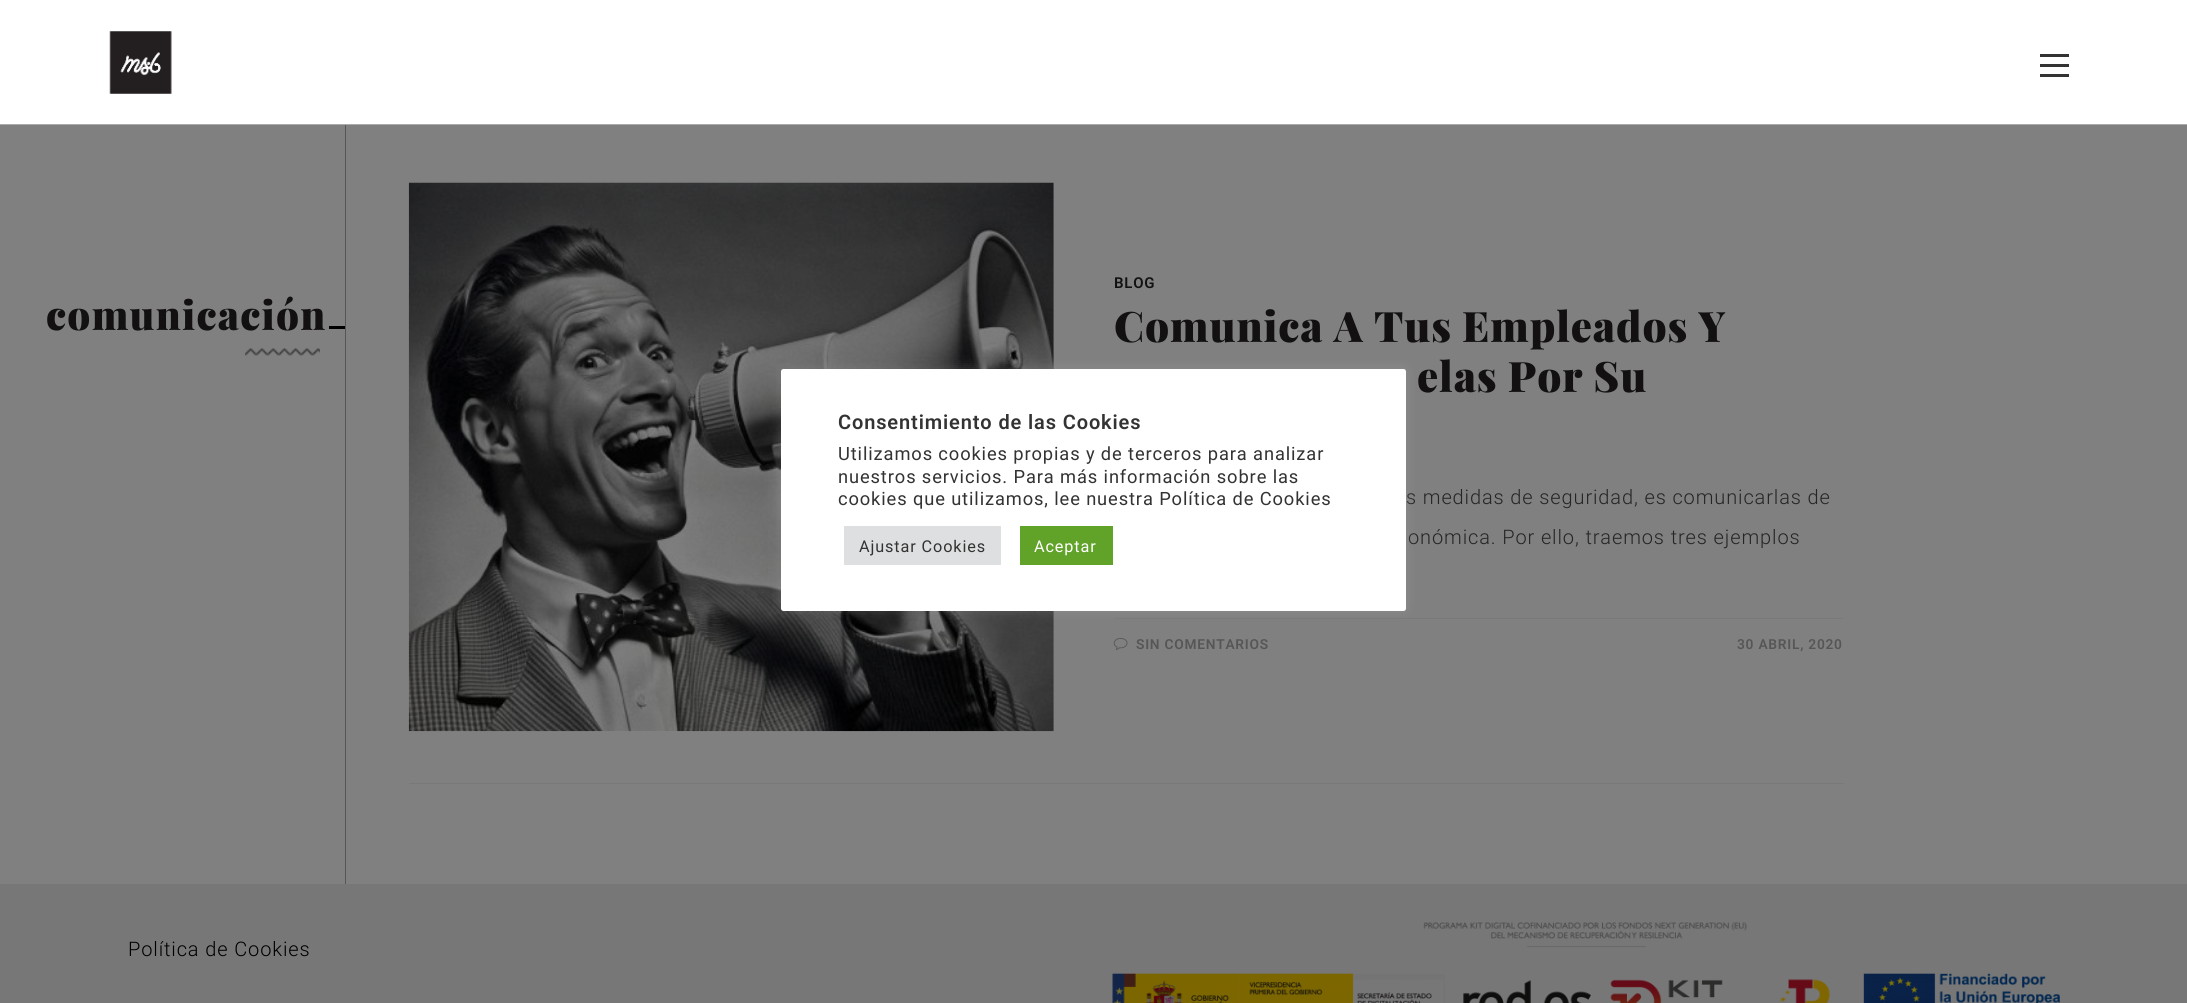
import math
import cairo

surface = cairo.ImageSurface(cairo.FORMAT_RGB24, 2187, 1003)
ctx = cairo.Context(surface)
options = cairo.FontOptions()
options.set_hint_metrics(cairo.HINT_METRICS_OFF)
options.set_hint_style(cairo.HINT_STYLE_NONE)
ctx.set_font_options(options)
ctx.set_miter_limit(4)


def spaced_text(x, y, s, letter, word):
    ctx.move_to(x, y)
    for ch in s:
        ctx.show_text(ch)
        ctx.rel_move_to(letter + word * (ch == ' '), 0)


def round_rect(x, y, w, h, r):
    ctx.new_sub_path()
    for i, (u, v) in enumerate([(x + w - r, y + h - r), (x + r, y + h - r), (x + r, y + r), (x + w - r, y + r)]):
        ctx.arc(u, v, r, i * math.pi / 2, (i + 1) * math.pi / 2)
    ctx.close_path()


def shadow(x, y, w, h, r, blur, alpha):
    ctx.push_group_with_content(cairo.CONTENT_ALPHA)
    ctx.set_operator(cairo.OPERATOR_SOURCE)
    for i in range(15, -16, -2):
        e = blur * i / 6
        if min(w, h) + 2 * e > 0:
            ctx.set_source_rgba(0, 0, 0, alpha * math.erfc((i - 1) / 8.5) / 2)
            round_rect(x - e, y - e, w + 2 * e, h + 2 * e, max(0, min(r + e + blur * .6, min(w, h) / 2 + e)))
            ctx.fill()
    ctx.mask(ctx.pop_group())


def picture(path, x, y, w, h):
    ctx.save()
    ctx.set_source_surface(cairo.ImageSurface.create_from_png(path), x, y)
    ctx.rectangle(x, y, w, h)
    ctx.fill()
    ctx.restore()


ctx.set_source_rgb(0.502, 0.502, 0.502)
ctx.paint()
ctx.set_source_rgb(0.337, 0.337, 0.337)
ctx.rectangle(345, 120, 1, 764)
ctx.fill()
ctx.set_source_rgb(1, 1, 1)
ctx.rectangle(0, 0, 2187, 124)
ctx.fill()
ctx.set_source_rgb(0.671, 0.671, 0.671)
ctx.rectangle(0, 124, 2187, 1)
ctx.fill()
picture("img1.png", 109, 31, 63, 63)
ctx.set_source_rgb(0.2, 0.2, 0.2)
ctx.rectangle(2040, 64, 29, 3)
ctx.fill()
ctx.rectangle(2040, 54, 29, 3)
ctx.fill()
ctx.rectangle(2040, 74, 29, 3)
ctx.fill()
ctx.select_font_face("Playfair Display Black")
ctx.set_font_size(40)
ctx.set_source_rgb(0.071, 0.063, 0.063)
spaced_text(46, 330, "comunicación", 1.25, 0)
ctx.set_source_rgb(0, 0, 0)
ctx.rectangle(329, 326, 16, 3)
ctx.fill()
picture("img2.png", 245, 348, 75, 8)
ctx.set_source_rgb(0.478, 0.471, 0.475)
ctx.rectangle(409, 783, 1435, 1)
ctx.fill()
picture("img3.png", 408, 182, 646, 550)
ctx.select_font_face("Roboto SemiBold")
ctx.set_font_size(15)
ctx.set_source_rgb(0.071, 0.063, 0.063)
spaced_text(1114, 288, "BLOG", 0.75, 0)
ctx.select_font_face("Playfair Display Black")
ctx.set_font_size(42)
spaced_text(1114, 342, "Comunica A Tus Empleados Y", 0.88, 0)
spaced_text(1417, 392, "elas Por Su", 0.88, 0)
ctx.select_font_face("Roboto Light")
ctx.set_font_size(20)
ctx.set_source_rgb(0.145, 0.145, 0.145)
spaced_text(1406, 504, "s medidas de seguridad, es comunicarlas de", 0.88, 0)
spaced_text(1408, 544, "onómica. Por ello, traemos tres ejemplos", 0.88, 0)
ctx.set_source_rgb(0.478, 0.471, 0.475)
ctx.rectangle(1114, 618, 729, 1)
ctx.fill()
picture("img4.png", 1113, 638, 15, 12)
ctx.select_font_face("Roboto SemiBold")
ctx.set_font_size(13.75)
ctx.set_source_rgb(0.337, 0.337, 0.337)
spaced_text(1136, 649, "SIN COMENTARIOS", 0.75, 0)
spaced_text(1737, 649, "30 ABRIL, 2020", 0.75, 0)
ctx.set_source_rgb(0.467, 0.467, 0.467)
ctx.rectangle(0, 884, 2187, 119)
ctx.fill()
ctx.select_font_face("Roboto Light")
ctx.set_font_size(20)
ctx.set_source_rgb(0, 0, 0)
spaced_text(128, 956, "Política de Cookies", 0.88, 0)
picture("img5.png", 1112, 922, 948, 81)
ctx.set_source_rgb(0.675, 0.671, 0.671)
shadow(781, 368, 625, 242, 2.5, 6, 0.3)
ctx.set_source_rgb(1, 1, 1)
round_rect(781, 369, 625, 242, 2.5)
ctx.fill()
ctx.select_font_face("Roboto SemiBold")
ctx.set_source_rgb(0.2, 0.2, 0.2)
spaced_text(838, 429, "Consentimiento de las Cookies", 0.88, 0)
ctx.select_font_face("Roboto")
ctx.set_font_size(18.3)
spaced_text(838, 460, "Utilizamos cookies propias y de terceros para analizar", 0.88, 0)
spaced_text(838, 483, "nuestros servicios. Para más información sobre las", 0.88, 0)
spaced_text(838, 505, "cookies que utilizamos, lee nuestra Política de Cookies", 0.88, 0)
ctx.set_source_rgb(0.871, 0.875, 0.878)
ctx.rectangle(844, 526, 157, 39)
ctx.fill()
ctx.set_font_size(16.25)
ctx.set_source_rgb(0.2, 0.2, 0.2)
spaced_text(859, 552, "Ajustar Cookies", 0.88, 0)
ctx.set_source_rgb(0.38, 0.635, 0.161)
ctx.rectangle(1020, 526, 93, 39)
ctx.fill()
ctx.set_source_rgb(1, 1, 1)
spaced_text(1034, 552, "Aceptar", 0.88, 0)
surface.write_to_png("page.png")
